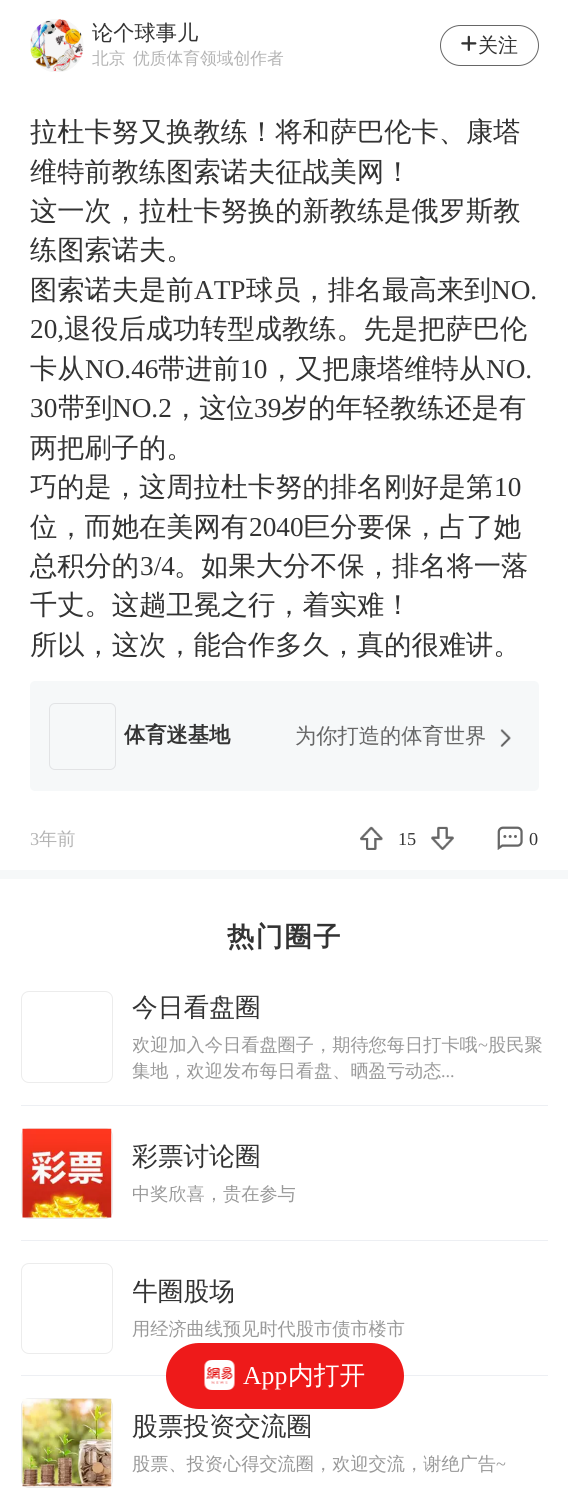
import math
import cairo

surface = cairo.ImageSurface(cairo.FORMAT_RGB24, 568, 1497)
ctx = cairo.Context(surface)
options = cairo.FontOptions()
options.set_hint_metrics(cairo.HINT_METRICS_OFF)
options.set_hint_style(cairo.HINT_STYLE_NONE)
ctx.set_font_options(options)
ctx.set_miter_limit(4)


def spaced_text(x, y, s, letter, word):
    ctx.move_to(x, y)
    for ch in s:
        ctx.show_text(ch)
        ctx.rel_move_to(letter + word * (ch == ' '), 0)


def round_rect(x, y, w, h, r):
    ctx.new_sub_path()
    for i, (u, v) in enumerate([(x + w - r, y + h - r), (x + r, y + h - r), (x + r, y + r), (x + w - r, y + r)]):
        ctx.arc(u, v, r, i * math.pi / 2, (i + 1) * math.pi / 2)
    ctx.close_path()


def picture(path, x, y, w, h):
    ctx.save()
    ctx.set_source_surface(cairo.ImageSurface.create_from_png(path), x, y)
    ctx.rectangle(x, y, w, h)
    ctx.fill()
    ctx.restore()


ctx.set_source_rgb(1, 1, 1)
ctx.paint()
picture("img1.png", 30, 19, 54, 53)
ctx.select_font_face("WenQuanYi Zen Hei Medium")
ctx.set_font_size(21.25)
ctx.set_source_rgb(0.2, 0.2, 0.2)
ctx.move_to(92, 40)
ctx.show_text("论个球事儿")
ctx.set_font_size(16.75)
ctx.set_source_rgb(0.706, 0.706, 0.706)
ctx.move_to(92, 64)
ctx.show_text("北京")
ctx.move_to(133, 64)
ctx.show_text("优质体育领域创作者")
round_rect(440.5, 25.5, 98, 40, 20)
ctx.set_source_rgb(0.4, 0.4, 0.4)
ctx.set_line_width(1)
ctx.stroke()
picture("img2.png", 461, 35, 16, 16)
ctx.set_font_size(20)
ctx.set_source_rgb(0.2, 0.2, 0.2)
ctx.move_to(478, 52)
ctx.show_text("关注")
ctx.set_source_rgb(0.961, 0.969, 0.976)
ctx.rectangle(0, 870, 568, 9)
ctx.fill()
ctx.set_font_size(27.25)
ctx.set_source_rgb(0.2, 0.2, 0.2)
ctx.move_to(30, 141)
ctx.show_text("拉杜卡努又换教练！将和萨巴伦卡、康塔")
ctx.move_to(30, 181)
ctx.show_text("维特前教练图索诺夫征战美网！")
ctx.move_to(30, 220)
ctx.show_text("这一次，拉杜卡努换的新教练是俄罗斯教")
ctx.move_to(30, 259)
ctx.show_text("练图索诺夫。")
ctx.move_to(30, 299)
ctx.show_text("图索诺夫是前")
ctx.select_font_face("Liberation Serif")
ctx.move_to(194, 299)
ctx.show_text("ATP")
ctx.select_font_face("WenQuanYi Zen Hei Medium")
ctx.move_to(246, 299)
ctx.show_text("球员，排名最高来到")
ctx.select_font_face("Liberation Serif")
ctx.move_to(491, 299)
ctx.show_text("NO.")
ctx.move_to(30, 338)
ctx.show_text("20,")
ctx.select_font_face("WenQuanYi Zen Hei Medium")
ctx.move_to(64, 338)
ctx.show_text("退役后成功转型成教练。先是把萨巴伦")
ctx.move_to(30, 378)
ctx.show_text("卡从")
ctx.select_font_face("Liberation Serif")
ctx.move_to(85, 378)
ctx.show_text("NO.46")
ctx.select_font_face("WenQuanYi Zen Hei Medium")
ctx.move_to(158, 378)
ctx.show_text("带进前")
ctx.select_font_face("Liberation Serif")
ctx.move_to(240, 378)
ctx.show_text("10")
ctx.select_font_face("WenQuanYi Zen Hei Medium")
ctx.move_to(268, 378)
ctx.show_text("，又把康塔维特从")
ctx.select_font_face("Liberation Serif")
ctx.move_to(486, 378)
ctx.show_text("NO.")
ctx.move_to(30, 417)
ctx.show_text("30")
ctx.select_font_face("WenQuanYi Zen Hei Medium")
ctx.move_to(58, 417)
ctx.show_text("带到")
ctx.select_font_face("Liberation Serif")
ctx.move_to(112, 417)
ctx.show_text("NO.2")
ctx.select_font_face("WenQuanYi Zen Hei Medium")
ctx.move_to(172, 417)
ctx.show_text("，这位")
ctx.select_font_face("Liberation Serif")
ctx.move_to(254, 417)
ctx.show_text("39")
ctx.select_font_face("WenQuanYi Zen Hei Medium")
ctx.move_to(281, 417)
ctx.show_text("岁的年轻教练还是有")
ctx.move_to(30, 457)
ctx.show_text("两把刷子的。")
ctx.move_to(30, 496)
ctx.show_text("巧的是，这周拉杜卡努的排名刚好是第")
ctx.select_font_face("Liberation Serif")
ctx.move_to(494, 496)
ctx.show_text("10")
ctx.select_font_face("WenQuanYi Zen Hei Medium")
ctx.move_to(30, 536)
ctx.show_text("位，而她在美网有")
ctx.select_font_face("Liberation Serif")
ctx.move_to(249, 536)
ctx.show_text("2040")
ctx.select_font_face("WenQuanYi Zen Hei Medium")
ctx.move_to(303, 536)
ctx.show_text("巨分要保，占了她")
ctx.move_to(30, 575)
ctx.show_text("总积分的")
ctx.select_font_face("Liberation Serif")
ctx.move_to(140, 575)
ctx.show_text("3/4")
ctx.select_font_face("WenQuanYi Zen Hei Medium")
ctx.move_to(174, 575)
ctx.show_text("。如果大分不保，排名将一落")
ctx.move_to(30, 614)
ctx.show_text("千丈。这趟卫冕之行，着实难！")
ctx.move_to(30, 654)
ctx.show_text("所以，这次，能合作多久，真的很难讲。")
ctx.set_source_rgb(0.961, 0.969, 0.976)
round_rect(30, 681, 509, 110, 5)
ctx.fill()
round_rect(49.5, 703.5, 66, 66, 5.5)
ctx.set_source_rgb(0.886, 0.89, 0.898)
ctx.stroke()
ctx.select_font_face("WenQuanYi Zen Hei", cairo.FONT_SLANT_NORMAL, cairo.FONT_WEIGHT_BOLD)
ctx.set_font_size(21.25)
ctx.set_source_rgb(0.2, 0.2, 0.2)
ctx.move_to(124, 742)
ctx.show_text("体育迷基地")
ctx.select_font_face("WenQuanYi Zen Hei Medium")
ctx.set_source_rgb(0.4, 0.4, 0.4)
ctx.move_to(295, 743)
ctx.show_text("为你打造的体育世界")
picture("img3.png", 500, 729, 11, 18)
ctx.select_font_face("Liberation Serif")
ctx.set_font_size(18.2)
ctx.set_source_rgb(0.706, 0.706, 0.706)
ctx.move_to(30, 845)
ctx.show_text("3")
ctx.select_font_face("WenQuanYi Zen Hei Medium")
ctx.move_to(39, 845)
ctx.show_text("年前")
picture("img4.png", 360, 826, 23, 24)
ctx.select_font_face("Liberation Serif")
ctx.set_source_rgb(0.2, 0.2, 0.2)
ctx.move_to(398, 845)
ctx.show_text("15")
picture("img5.png", 431, 826, 23, 24)
picture("img6.png", 497, 826, 26, 24)
ctx.move_to(529, 845)
ctx.show_text("0")
ctx.select_font_face("WenQuanYi Zen Hei", cairo.FONT_SLANT_NORMAL, cairo.FONT_WEIGHT_BOLD)
ctx.set_font_size(27.25)
spaced_text(227, 946, "热门圈子", 1.5, 0)
ctx.set_source_rgb(0.929, 0.937, 0.953)
ctx.rectangle(21, 1105, 527, 1)
ctx.fill()
round_rect(21.5, 991.5, 91, 91, 7.5)
ctx.set_source_rgb(0.922, 0.922, 0.922)
ctx.stroke()
ctx.select_font_face("WenQuanYi Zen Hei Medium")
ctx.set_font_size(25.75)
ctx.set_source_rgb(0.2, 0.2, 0.2)
ctx.move_to(132, 1016)
ctx.show_text("今日看盘圈")
ctx.save()
ctx.rectangle(133, 1033, 415, 51)
ctx.clip()
ctx.set_font_size(18.2)
ctx.set_source_rgb(0.6, 0.6, 0.6)
ctx.move_to(132, 1051)
ctx.show_text("欢迎加入今日看盘圈子，期待您每日打卡哦")
ctx.restore()
ctx.select_font_face("Liberation Serif")
ctx.set_font_size(18.2)
ctx.set_source_rgb(0.6, 0.6, 0.6)
ctx.move_to(478, 1051)
ctx.show_text("~")
ctx.select_font_face("WenQuanYi Zen Hei Medium")
ctx.move_to(488, 1051)
ctx.show_text("股民聚")
ctx.move_to(132, 1077)
ctx.show_text("集地，欢迎发布每日看盘、晒盈亏动态")
ctx.select_font_face("Liberation Serif")
ctx.move_to(441, 1077)
ctx.show_text("...")
ctx.set_source_rgb(0.929, 0.937, 0.953)
ctx.rectangle(21, 1240, 527, 1)
ctx.fill()
round_rect(21.5, 1128.5, 91, 90, 7.5)
ctx.set_source_rgb(0.922, 0.922, 0.922)
ctx.stroke()
picture("img7.png", 22, 1128, 90, 90)
ctx.select_font_face("WenQuanYi Zen Hei Medium")
ctx.set_font_size(25.75)
ctx.set_source_rgb(0.2, 0.2, 0.2)
ctx.move_to(132, 1165)
ctx.show_text("彩票讨论圈")
ctx.set_font_size(18.2)
ctx.set_source_rgb(0.6, 0.6, 0.6)
ctx.move_to(132, 1200)
ctx.show_text("中奖欣喜，贵在参与")
ctx.set_source_rgb(0.929, 0.937, 0.953)
ctx.rectangle(21, 1375, 527, 1)
ctx.fill()
round_rect(21.5, 1263.5, 91, 90, 7.5)
ctx.set_source_rgb(0.922, 0.922, 0.922)
ctx.stroke()
ctx.save()
ctx.rectangle(133, 1274, 415, 36)
ctx.clip()
ctx.set_font_size(25.75)
ctx.set_source_rgb(0.2, 0.2, 0.2)
ctx.move_to(132, 1300)
ctx.show_text("牛圈股场")
ctx.restore()
ctx.set_source_rgb(0.6, 0.6, 0.6)
ctx.move_to(132, 1335)
ctx.show_text("用经济曲线预见时代股市债市楼市")
round_rect(21.5, 1398.5, 91, 89, 7.5)
ctx.set_source_rgb(0.922, 0.922, 0.922)
ctx.stroke()
picture("img8.png", 22, 1398, 90, 89)
ctx.set_font_size(25.75)
ctx.set_source_rgb(0.2, 0.2, 0.2)
ctx.move_to(132, 1435)
ctx.show_text("股票投资交流圈")
ctx.set_font_size(18.2)
ctx.set_source_rgb(0.6, 0.6, 0.6)
ctx.move_to(132, 1470)
ctx.show_text("股票、投资心得交流圈，欢迎交流，谢绝广告")
ctx.select_font_face("Liberation Serif")
ctx.move_to(496, 1470)
ctx.show_text("~")
ctx.set_source_rgb(0.933, 0.102, 0.102)
round_rect(166, 1343, 238, 66, 33)
ctx.fill()
picture("img9.png", 204, 1360, 31, 30)
ctx.set_font_size(25.75)
ctx.set_source_rgb(1, 1, 1)
ctx.move_to(243, 1384)
ctx.show_text("App")
ctx.select_font_face("WenQuanYi Zen Hei Medium")
ctx.move_to(288, 1384)
ctx.show_text("内打开")
surface.write_to_png("page.png")
